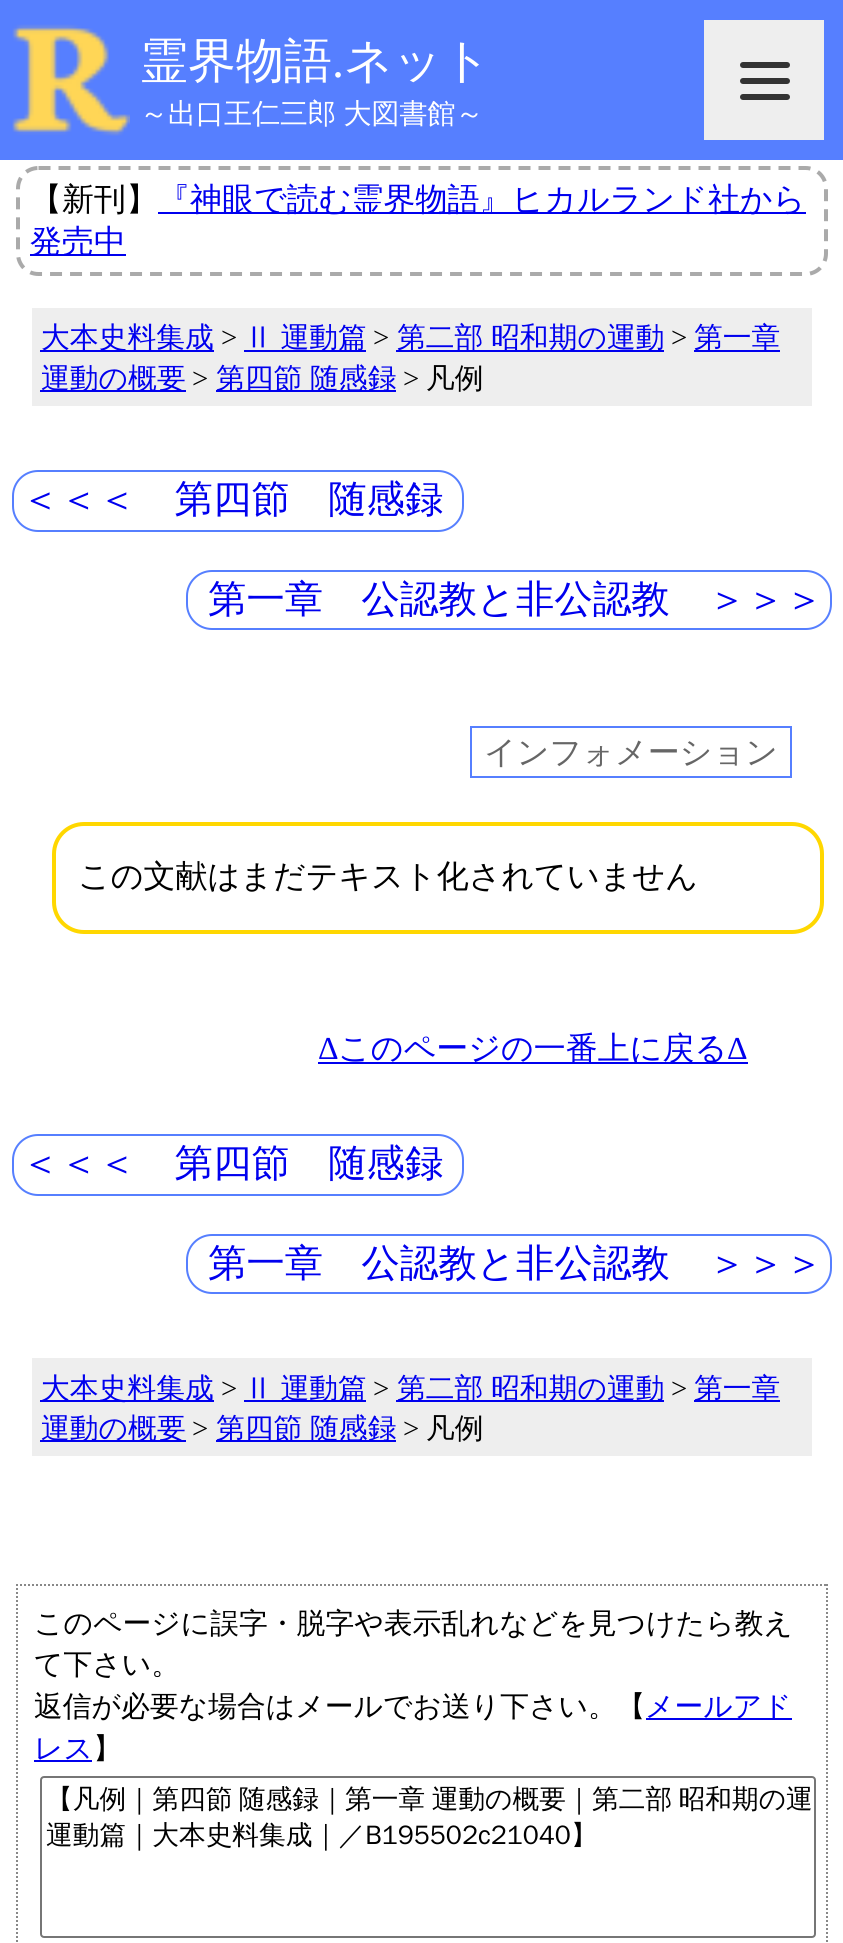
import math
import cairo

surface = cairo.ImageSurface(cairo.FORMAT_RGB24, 843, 1943)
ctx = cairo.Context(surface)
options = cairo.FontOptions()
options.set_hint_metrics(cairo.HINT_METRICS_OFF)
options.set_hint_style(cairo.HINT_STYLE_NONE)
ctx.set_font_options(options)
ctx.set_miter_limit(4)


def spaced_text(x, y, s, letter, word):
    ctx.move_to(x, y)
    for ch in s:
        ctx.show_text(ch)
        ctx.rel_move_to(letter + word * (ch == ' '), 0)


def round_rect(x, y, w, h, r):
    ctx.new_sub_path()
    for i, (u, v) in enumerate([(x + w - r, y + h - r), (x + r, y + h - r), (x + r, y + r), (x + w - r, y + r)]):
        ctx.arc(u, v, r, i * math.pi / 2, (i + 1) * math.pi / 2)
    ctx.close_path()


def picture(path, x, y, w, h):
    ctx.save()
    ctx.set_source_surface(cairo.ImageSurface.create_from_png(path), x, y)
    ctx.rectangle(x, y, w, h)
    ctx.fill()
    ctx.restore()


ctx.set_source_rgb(1, 1, 1)
ctx.paint()
ctx.set_source_rgb(0.337, 0.498, 1)
ctx.rectangle(0, 0, 843, 160)
ctx.fill()
picture("img1.png", 12, 24, 118, 112)
ctx.select_font_face("WenQuanYi Zen Hei Medium")
ctx.set_font_size(48)
ctx.set_source_rgb(1, 1, 1)
ctx.move_to(140, 77)
ctx.show_text("霊界物語")
ctx.select_font_face("Liberation Serif")
ctx.move_to(332, 77)
ctx.show_text(".")
ctx.select_font_face("WenQuanYi Zen Hei Medium")
ctx.move_to(344, 77)
ctx.show_text("ネット")
ctx.set_font_size(28)
spaced_text(140, 123, "～出口王仁三郎 大図書館～", 0, -1)
ctx.set_source_rgb(0.933, 0.933, 0.933)
ctx.rectangle(704, 20, 120, 120)
ctx.fill()
ctx.set_source_rgb(0.2, 0.2, 0.2)
round_rect(740, 78, 50, 6, 3)
ctx.fill()
round_rect(740, 62, 50, 6, 3)
ctx.fill()
round_rect(740, 94, 50, 6, 3)
ctx.fill()
ctx.new_path()
ctx.move_to(38.5, 168)
ctx.line_to(805.5, 168)
ctx.curve_to(817, 168, 826, 177, 826, 188.5)
ctx.line_to(826, 253.5)
ctx.curve_to(826, 265, 817, 274, 805.5, 274)
ctx.line_to(38.5, 274)
ctx.curve_to(27, 274, 18, 265, 18, 253.5)
ctx.line_to(18, 188.5)
ctx.curve_to(18, 177, 27, 168, 38.5, 168)
ctx.close_path()
ctx.set_source_rgb(0.667, 0.667, 0.667)
ctx.set_line_width(4)
ctx.set_dash([12, 8])
ctx.stroke()
ctx.set_font_size(32)
ctx.set_source_rgb(0, 0, 0)
ctx.move_to(30, 210)
ctx.show_text("【新刊】")
ctx.set_source_rgb(0, 0, 0.933)
ctx.rectangle(158, 212, 648, 2)
ctx.fill()
ctx.move_to(158, 210)
ctx.show_text("『神眼で読む霊界物語』ヒカルランド社から")
ctx.rectangle(30, 254, 96, 2)
ctx.fill()
ctx.move_to(30, 252)
ctx.show_text("発売中")
ctx.set_source_rgb(0.933, 0.933, 0.933)
ctx.rectangle(32, 308, 780, 98)
ctx.fill()
ctx.set_source_rgb(0, 0, 0.933)
ctx.rectangle(40, 350, 174, 2)
ctx.fill()
ctx.set_font_size(28.8)
ctx.move_to(41, 347)
ctx.show_text("大本史料集成")
ctx.select_font_face("Liberation Serif")
ctx.set_source_rgb(0, 0, 0)
ctx.move_to(221, 347)
ctx.show_text(">")
ctx.set_source_rgb(0, 0, 0.933)
ctx.rectangle(244, 350, 122, 2)
ctx.fill()
ctx.select_font_face("WenQuanYi Zen Hei Medium")
spaced_text(244, 347, "Ⅱ 運動篇", 0, -1)
ctx.select_font_face("Liberation Serif")
ctx.set_source_rgb(0, 0, 0)
ctx.move_to(373, 347)
ctx.show_text(">")
ctx.set_source_rgb(0, 0, 0.933)
ctx.rectangle(396, 350, 268, 2)
ctx.fill()
ctx.select_font_face("WenQuanYi Zen Hei Medium")
spaced_text(397, 347, "第二部 昭和期の運動", 0, -1)
ctx.select_font_face("Liberation Serif")
ctx.set_source_rgb(0, 0, 0)
ctx.move_to(671, 347)
ctx.show_text(">")
ctx.set_source_rgb(0, 0, 0.933)
ctx.rectangle(694, 350, 86, 2)
ctx.fill()
ctx.select_font_face("WenQuanYi Zen Hei Medium")
ctx.move_to(694, 347)
ctx.show_text("第一章")
ctx.rectangle(40, 390, 146, 2)
ctx.fill()
ctx.move_to(41, 388)
ctx.show_text("運動の概要")
ctx.select_font_face("Liberation Serif")
ctx.set_source_rgb(0, 0, 0)
ctx.move_to(192, 388)
ctx.show_text(">")
ctx.set_source_rgb(0, 0, 0.933)
ctx.rectangle(216, 390, 180, 2)
ctx.fill()
ctx.select_font_face("WenQuanYi Zen Hei Medium")
spaced_text(216, 388, "第四節 随感録", 0, -1)
ctx.select_font_face("Liberation Serif")
ctx.set_source_rgb(0, 0, 0)
ctx.move_to(403, 388)
ctx.show_text(">")
ctx.select_font_face("WenQuanYi Zen Hei Medium")
ctx.move_to(426, 388)
ctx.show_text("凡例")
round_rect(13, 471, 450, 60, 25)
ctx.set_source_rgb(0.337, 0.498, 1)
ctx.set_line_width(2)
ctx.set_dash([])
ctx.stroke()
ctx.set_font_size(38.4)
ctx.set_source_rgb(0, 0, 0.933)
ctx.move_to(21, 512)
ctx.show_text("＜＜＜　第四節　随感録")
round_rect(187, 571, 644, 58, 25)
ctx.set_source_rgb(0.337, 0.498, 1)
ctx.stroke()
ctx.set_source_rgb(0, 0, 0.933)
ctx.move_to(208, 612)
ctx.show_text("第一章　公認教と非公認教　＞＞＞")
ctx.rectangle(471, 727, 320, 50)
ctx.set_source_rgb(0.337, 0.498, 1)
ctx.stroke()
ctx.set_font_size(32)
ctx.set_source_rgb(0.4, 0.4, 0.4)
ctx.move_to(484, 763)
ctx.show_text("インフォメーション")
round_rect(54, 824, 768, 108, 30)
ctx.set_source_rgb(1, 0.843, 0)
ctx.set_line_width(4)
ctx.stroke()
ctx.set_source_rgb(0, 0, 0)
ctx.move_to(78, 887)
ctx.show_text("この文献はまだテキスト化されていません")
ctx.select_font_face("Liberation Serif")
ctx.set_source_rgb(0, 0, 0.933)
ctx.move_to(318, 1059)
ctx.show_text("Δ")
ctx.rectangle(318, 1062, 430, 2)
ctx.fill()
ctx.select_font_face("WenQuanYi Zen Hei Medium")
ctx.move_to(338, 1059)
ctx.show_text("このページの一番上に戻る")
ctx.select_font_face("Liberation Serif")
ctx.move_to(727, 1059)
ctx.show_text("Δ")
round_rect(13, 1135, 450, 60, 25)
ctx.set_source_rgb(0.337, 0.498, 1)
ctx.set_line_width(2)
ctx.stroke()
ctx.select_font_face("WenQuanYi Zen Hei Medium")
ctx.set_font_size(38.4)
ctx.set_source_rgb(0, 0, 0.933)
ctx.move_to(21, 1176)
ctx.show_text("＜＜＜　第四節　随感録")
round_rect(187, 1235, 644, 58, 25)
ctx.set_source_rgb(0.337, 0.498, 1)
ctx.stroke()
ctx.set_source_rgb(0, 0, 0.933)
ctx.move_to(208, 1276)
ctx.show_text("第一章　公認教と非公認教　＞＞＞")
ctx.set_source_rgb(0.933, 0.933, 0.933)
ctx.rectangle(32, 1358, 780, 98)
ctx.fill()
ctx.set_source_rgb(0, 0, 0.933)
ctx.rectangle(40, 1400, 174, 2)
ctx.fill()
ctx.set_font_size(28.8)
ctx.move_to(41, 1398)
ctx.show_text("大本史料集成")
ctx.select_font_face("Liberation Serif")
ctx.set_source_rgb(0, 0, 0)
ctx.move_to(221, 1398)
ctx.show_text(">")
ctx.set_source_rgb(0, 0, 0.933)
ctx.rectangle(244, 1400, 122, 2)
ctx.fill()
ctx.select_font_face("WenQuanYi Zen Hei Medium")
spaced_text(244, 1398, "Ⅱ 運動篇", 0, -1)
ctx.select_font_face("Liberation Serif")
ctx.set_source_rgb(0, 0, 0)
ctx.move_to(373, 1398)
ctx.show_text(">")
ctx.set_source_rgb(0, 0, 0.933)
ctx.rectangle(396, 1400, 268, 2)
ctx.fill()
ctx.select_font_face("WenQuanYi Zen Hei Medium")
spaced_text(397, 1398, "第二部 昭和期の運動", 0, -1)
ctx.select_font_face("Liberation Serif")
ctx.set_source_rgb(0, 0, 0)
ctx.move_to(671, 1398)
ctx.show_text(">")
ctx.set_source_rgb(0, 0, 0.933)
ctx.rectangle(694, 1400, 86, 2)
ctx.fill()
ctx.select_font_face("WenQuanYi Zen Hei Medium")
ctx.move_to(694, 1398)
ctx.show_text("第一章")
ctx.rectangle(40, 1440, 146, 2)
ctx.fill()
ctx.move_to(41, 1438)
ctx.show_text("運動の概要")
ctx.select_font_face("Liberation Serif")
ctx.set_source_rgb(0, 0, 0)
ctx.move_to(192, 1438)
ctx.show_text(">")
ctx.set_source_rgb(0, 0, 0.933)
ctx.rectangle(216, 1440, 180, 2)
ctx.fill()
ctx.select_font_face("WenQuanYi Zen Hei Medium")
spaced_text(216, 1438, "第四節 随感録", 0, -1)
ctx.select_font_face("Liberation Serif")
ctx.set_source_rgb(0, 0, 0)
ctx.move_to(403, 1438)
ctx.show_text(">")
ctx.select_font_face("WenQuanYi Zen Hei Medium")
ctx.move_to(426, 1438)
ctx.show_text("凡例")
ctx.new_path()
ctx.move_to(16, 1585)
ctx.line_to(828, 1585)
ctx.set_source_rgb(0.533, 0.533, 0.533)
ctx.set_dash([2, 2])
ctx.stroke()
ctx.new_path()
ctx.move_to(827, 1584)
ctx.line_to(827, 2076)
ctx.stroke()
ctx.new_path()
ctx.move_to(17, 1584)
ctx.line_to(17, 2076)
ctx.stroke()
ctx.set_source_rgb(0, 0, 0)
ctx.move_to(34, 1633)
ctx.show_text("このページに誤字・脱字や表示乱れなどを見つけたら教え")
ctx.move_to(34, 1674)
ctx.show_text("て下さい。")
ctx.move_to(34, 1716)
ctx.show_text("返信が必要な場合はメールでお送り下さい。【")
ctx.set_source_rgb(0, 0, 0.933)
ctx.rectangle(646, 1718, 146, 2)
ctx.fill()
ctx.move_to(645, 1716)
ctx.show_text("メールアド")
ctx.move_to(34, 1758)
ctx.show_text("レス")
ctx.rectangle(34, 1760, 58, 2)
ctx.fill()
ctx.set_source_rgb(0, 0, 0)
ctx.move_to(93, 1758)
ctx.show_text("】")
round_rect(41, 1777, 774, 160, 3)
ctx.set_source_rgb(0.463, 0.463, 0.463)
ctx.set_dash([])
ctx.stroke()
ctx.set_font_size(26.7)
ctx.set_source_rgb(0, 0, 0)
spaced_text(46, 1808, "【凡例｜第四節 随感録｜第一章 運動の概要｜第二部 昭和期の運", 0, -1.5)
ctx.move_to(46, 1844)
ctx.show_text("運動篇｜大本史料集成｜／B195502c21040】")
surface.write_to_png("page.png")
